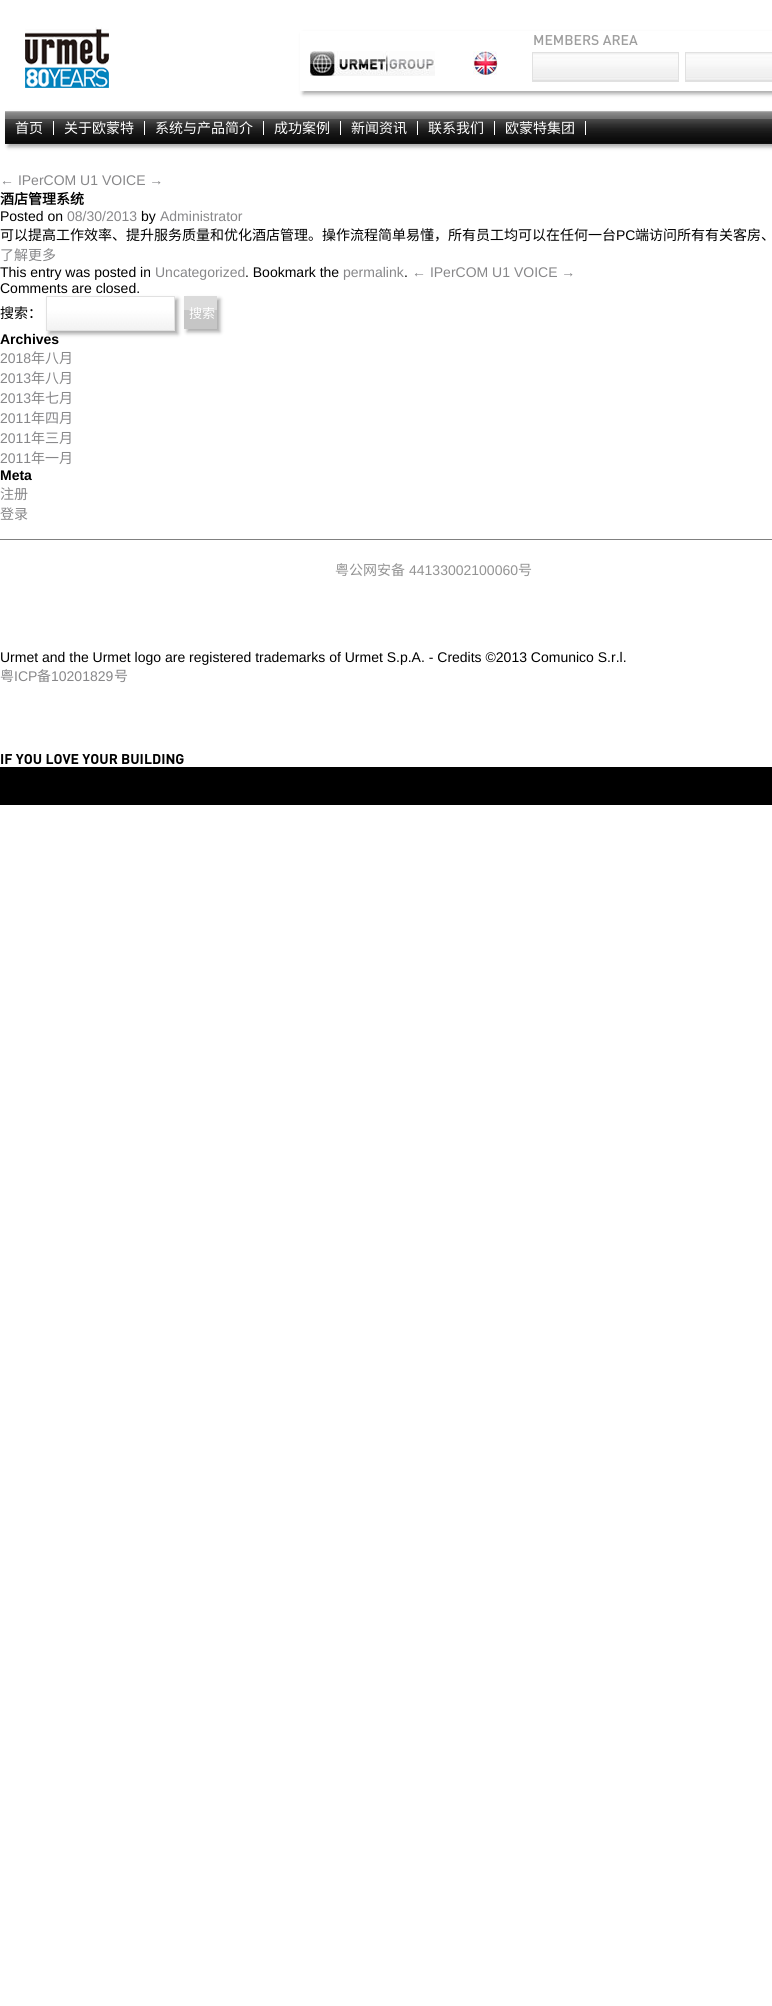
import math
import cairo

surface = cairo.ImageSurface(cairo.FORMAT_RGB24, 772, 2006)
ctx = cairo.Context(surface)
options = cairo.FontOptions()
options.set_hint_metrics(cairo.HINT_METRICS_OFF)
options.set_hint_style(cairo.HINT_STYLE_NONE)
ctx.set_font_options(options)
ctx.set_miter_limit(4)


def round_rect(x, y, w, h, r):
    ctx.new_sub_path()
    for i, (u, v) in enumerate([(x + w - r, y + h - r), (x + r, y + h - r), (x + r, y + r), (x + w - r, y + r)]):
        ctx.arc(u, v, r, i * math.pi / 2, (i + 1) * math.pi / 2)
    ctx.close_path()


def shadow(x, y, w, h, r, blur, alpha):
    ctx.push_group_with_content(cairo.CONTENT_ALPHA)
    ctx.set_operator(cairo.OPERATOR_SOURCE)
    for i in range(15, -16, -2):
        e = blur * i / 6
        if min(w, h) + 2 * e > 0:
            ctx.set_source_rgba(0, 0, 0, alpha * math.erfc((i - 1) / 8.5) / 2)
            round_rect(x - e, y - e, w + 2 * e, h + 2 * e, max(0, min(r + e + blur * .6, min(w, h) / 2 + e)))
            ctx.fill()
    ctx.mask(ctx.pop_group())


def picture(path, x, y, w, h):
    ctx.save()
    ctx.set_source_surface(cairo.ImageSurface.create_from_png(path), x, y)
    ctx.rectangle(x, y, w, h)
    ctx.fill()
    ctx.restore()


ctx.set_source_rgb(1, 1, 1)
ctx.paint()
picture("img1.png", 25, 27, 84, 61)
ctx.save()
ctx.set_fill_rule(cairo.FILL_RULE_EVEN_ODD)
ctx.new_path()
ctx.move_to(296, 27)
ctx.line_to(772, 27)
ctx.line_to(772, 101)
ctx.line_to(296, 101)
ctx.close_path()
ctx.move_to(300, 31)
ctx.line_to(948, 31)
ctx.line_to(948, 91)
ctx.line_to(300, 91)
ctx.close_path()
ctx.clip()
ctx.set_source_rgb(0.671, 0.671, 0.671)
shadow(303, 34, 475, 60, 0, 2, 1)
ctx.restore()
ctx.select_font_face("DIN Medium")
ctx.set_font_size(14)
ctx.set_source_rgb(0.62, 0.62, 0.62)
ctx.move_to(533, 45)
ctx.show_text("MEMBERS AREA")
picture("img2.png", 533, 53, 145, 28)
ctx.rectangle(532.5, 52.5, 146, 29)
ctx.set_source_rgb(0.882, 0.882, 0.882)
ctx.set_line_width(1)
ctx.stroke()
picture("img3.png", 686, 53, 86, 28)
ctx.rectangle(685.5, 52.5, 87, 29)
ctx.stroke()
picture("img4.png", 310, 51, 125, 25)
picture("img5.png", 473, 51, 25, 24)
ctx.set_source_rgb(0.671, 0.671, 0.671)
shadow(8, 114, 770, 33, 0, 2, 1)
picture("img6.png", 5, 111, 767, 33)
ctx.set_source_rgb(1, 1, 1)
ctx.rectangle(53, 121, 1, 14)
ctx.fill()
ctx.select_font_face("Noto Sans CJK SC")
ctx.move_to(15, 133)
ctx.show_text("首页")
ctx.rectangle(144, 121, 1, 14)
ctx.fill()
ctx.move_to(64, 133)
ctx.show_text("关于欧蒙特")
ctx.rectangle(263, 121, 1, 14)
ctx.fill()
ctx.move_to(155, 133)
ctx.show_text("系统与产品简介")
ctx.rectangle(340, 121, 1, 14)
ctx.fill()
ctx.move_to(274, 133)
ctx.show_text("成功案例")
ctx.rectangle(417, 121, 1, 14)
ctx.fill()
ctx.move_to(351, 133)
ctx.show_text("新闻资讯")
ctx.rectangle(494, 121, 1, 14)
ctx.fill()
ctx.move_to(428, 133)
ctx.show_text("联系我们")
ctx.rectangle(585, 121, 1, 14)
ctx.fill()
ctx.move_to(505, 133)
ctx.show_text("欧蒙特集团")
ctx.select_font_face("Liberation Sans")
ctx.set_source_rgb(0.529, 0.529, 0.537)
ctx.move_to(0, 185)
ctx.show_text("← IPerCOM U1 VOICE →")
ctx.select_font_face("Noto Sans CJK SC", cairo.FONT_SLANT_NORMAL, cairo.FONT_WEIGHT_BOLD)
ctx.set_source_rgb(0, 0, 0)
ctx.move_to(0, 204)
ctx.show_text("酒店管理系统")
ctx.select_font_face("Liberation Sans")
ctx.move_to(0, 221)
ctx.show_text("Posted on")
ctx.set_source_rgb(0.529, 0.529, 0.537)
ctx.move_to(67, 221)
ctx.show_text("08/30/2013")
ctx.set_source_rgb(0, 0, 0)
ctx.move_to(141, 221)
ctx.show_text("by")
ctx.set_source_rgb(0.529, 0.529, 0.537)
ctx.move_to(160, 221)
ctx.show_text("Administrator")
ctx.select_font_face("Noto Sans CJK SC")
ctx.set_source_rgb(0, 0, 0)
ctx.move_to(0, 240)
ctx.show_text("可以提高工作效率、提升服务质量和优化酒店管理。操作流程简单易懂，所有员工均可以在任何一台")
ctx.select_font_face("Liberation Sans")
ctx.move_to(616, 240)
ctx.show_text("PC")
ctx.select_font_face("Noto Sans CJK SC")
ctx.move_to(635, 240)
ctx.show_text("端访问所有有关客房、")
ctx.set_source_rgb(0.529, 0.529, 0.537)
ctx.move_to(0, 260)
ctx.show_text("了解更多")
ctx.select_font_face("Liberation Sans")
ctx.set_source_rgb(0, 0, 0)
ctx.move_to(0, 277)
ctx.show_text("This entry was posted in")
ctx.set_source_rgb(0.529, 0.529, 0.537)
ctx.move_to(155, 277)
ctx.show_text("Uncategorized")
ctx.set_source_rgb(0, 0, 0)
ctx.move_to(245, 277)
ctx.show_text(". Bookmark the")
ctx.set_source_rgb(0.529, 0.529, 0.537)
ctx.move_to(343, 277)
ctx.show_text("permalink")
ctx.set_source_rgb(0, 0, 0)
ctx.move_to(404, 277)
ctx.show_text(".")
ctx.set_source_rgb(0.529, 0.529, 0.537)
ctx.move_to(412, 277)
ctx.show_text("← IPerCOM U1 VOICE →")
ctx.set_source_rgb(0, 0, 0)
ctx.move_to(0, 293)
ctx.show_text("Comments are closed.")
ctx.select_font_face("Noto Sans CJK SC")
ctx.move_to(0, 318)
ctx.show_text("搜索：")
ctx.set_source_rgb(0.671, 0.671, 0.671)
shadow(49, 299, 129, 35, 0, 2, 1)
picture("img7.png", 47, 297, 127, 33)
ctx.rectangle(46.5, 296.5, 128, 34)
ctx.set_source_rgb(0.882, 0.882, 0.882)
ctx.stroke()
ctx.set_source_rgb(0.671, 0.671, 0.671)
shadow(187, 299, 33, 33, 0, 2, 1)
ctx.set_source_rgb(0.859, 0.859, 0.859)
ctx.rectangle(184, 296, 33, 14)
ctx.fill()
ctx.set_source_rgb(0.776, 0.776, 0.776)
ctx.rectangle(184, 310, 33, 19)
ctx.fill()
ctx.set_font_size(13)
ctx.set_source_rgb(1, 1, 1)
ctx.move_to(189, 318)
ctx.show_text("搜索")
ctx.select_font_face("Liberation Sans", cairo.FONT_SLANT_NORMAL, cairo.FONT_WEIGHT_BOLD)
ctx.set_font_size(14)
ctx.set_source_rgb(0, 0, 0)
ctx.move_to(0, 344)
ctx.show_text("Archives")
ctx.select_font_face("Liberation Sans")
ctx.set_source_rgb(0.529, 0.529, 0.537)
ctx.move_to(0, 363)
ctx.show_text("2018")
ctx.select_font_face("Noto Sans CJK SC")
ctx.move_to(31, 363)
ctx.show_text("年八月")
ctx.select_font_face("Liberation Sans")
ctx.move_to(0, 383)
ctx.show_text("2013")
ctx.select_font_face("Noto Sans CJK SC")
ctx.move_to(31, 383)
ctx.show_text("年八月")
ctx.select_font_face("Liberation Sans")
ctx.move_to(0, 403)
ctx.show_text("2013")
ctx.select_font_face("Noto Sans CJK SC")
ctx.move_to(31, 403)
ctx.show_text("年七月")
ctx.select_font_face("Liberation Sans")
ctx.move_to(0, 423)
ctx.show_text("2011")
ctx.select_font_face("Noto Sans CJK SC")
ctx.move_to(31, 423)
ctx.show_text("年四月")
ctx.select_font_face("Liberation Sans")
ctx.move_to(0, 443)
ctx.show_text("2011")
ctx.select_font_face("Noto Sans CJK SC")
ctx.move_to(31, 443)
ctx.show_text("年三月")
ctx.select_font_face("Liberation Sans")
ctx.move_to(0, 463)
ctx.show_text("2011")
ctx.select_font_face("Noto Sans CJK SC")
ctx.move_to(31, 463)
ctx.show_text("年一月")
ctx.select_font_face("Liberation Sans", cairo.FONT_SLANT_NORMAL, cairo.FONT_WEIGHT_BOLD)
ctx.set_source_rgb(0, 0, 0)
ctx.move_to(0, 480)
ctx.show_text("Meta")
ctx.select_font_face("Noto Sans CJK SC")
ctx.set_source_rgb(0.529, 0.529, 0.537)
ctx.move_to(0, 499)
ctx.show_text("注册")
ctx.move_to(0, 519)
ctx.show_text("登录")
ctx.set_source_rgb(0.502, 0.502, 0.502)
ctx.rectangle(0, 539, 772, 1)
ctx.fill()
ctx.set_source_rgb(0.576, 0.576, 0.576)
ctx.move_to(335, 575)
ctx.show_text("粤公网安备")
ctx.select_font_face("Liberation Sans")
ctx.move_to(409, 575)
ctx.show_text("44133002100060")
ctx.select_font_face("Noto Sans CJK SC")
ctx.move_to(518, 575)
ctx.show_text("号")
ctx.select_font_face("Liberation Sans")
ctx.set_source_rgb(0, 0, 0)
ctx.move_to(0, 662)
ctx.show_text("Urmet and the Urmet logo are registered trademarks of Urmet S.p.A. - Credits ©2013 Comunico S.r.l.")
ctx.select_font_face("Noto Sans CJK SC")
ctx.set_source_rgb(0.529, 0.529, 0.537)
ctx.move_to(0, 681)
ctx.show_text("粤")
ctx.select_font_face("Liberation Sans")
ctx.move_to(14, 681)
ctx.show_text("ICP")
ctx.select_font_face("Noto Sans CJK SC")
ctx.move_to(37, 681)
ctx.show_text("备")
ctx.select_font_face("Liberation Sans")
ctx.move_to(51, 681)
ctx.show_text("10201829")
ctx.select_font_face("Noto Sans CJK SC")
ctx.move_to(114, 681)
ctx.show_text("号")
ctx.select_font_face("DIN", cairo.FONT_SLANT_NORMAL, cairo.FONT_WEIGHT_BOLD)
ctx.set_source_rgb(0, 0, 0)
ctx.move_to(0, 764)
ctx.show_text("IF YOU LOVE YOUR BUILDING")
ctx.rectangle(0, 767, 772, 38)
ctx.fill()
surface.write_to_png("page.png")
